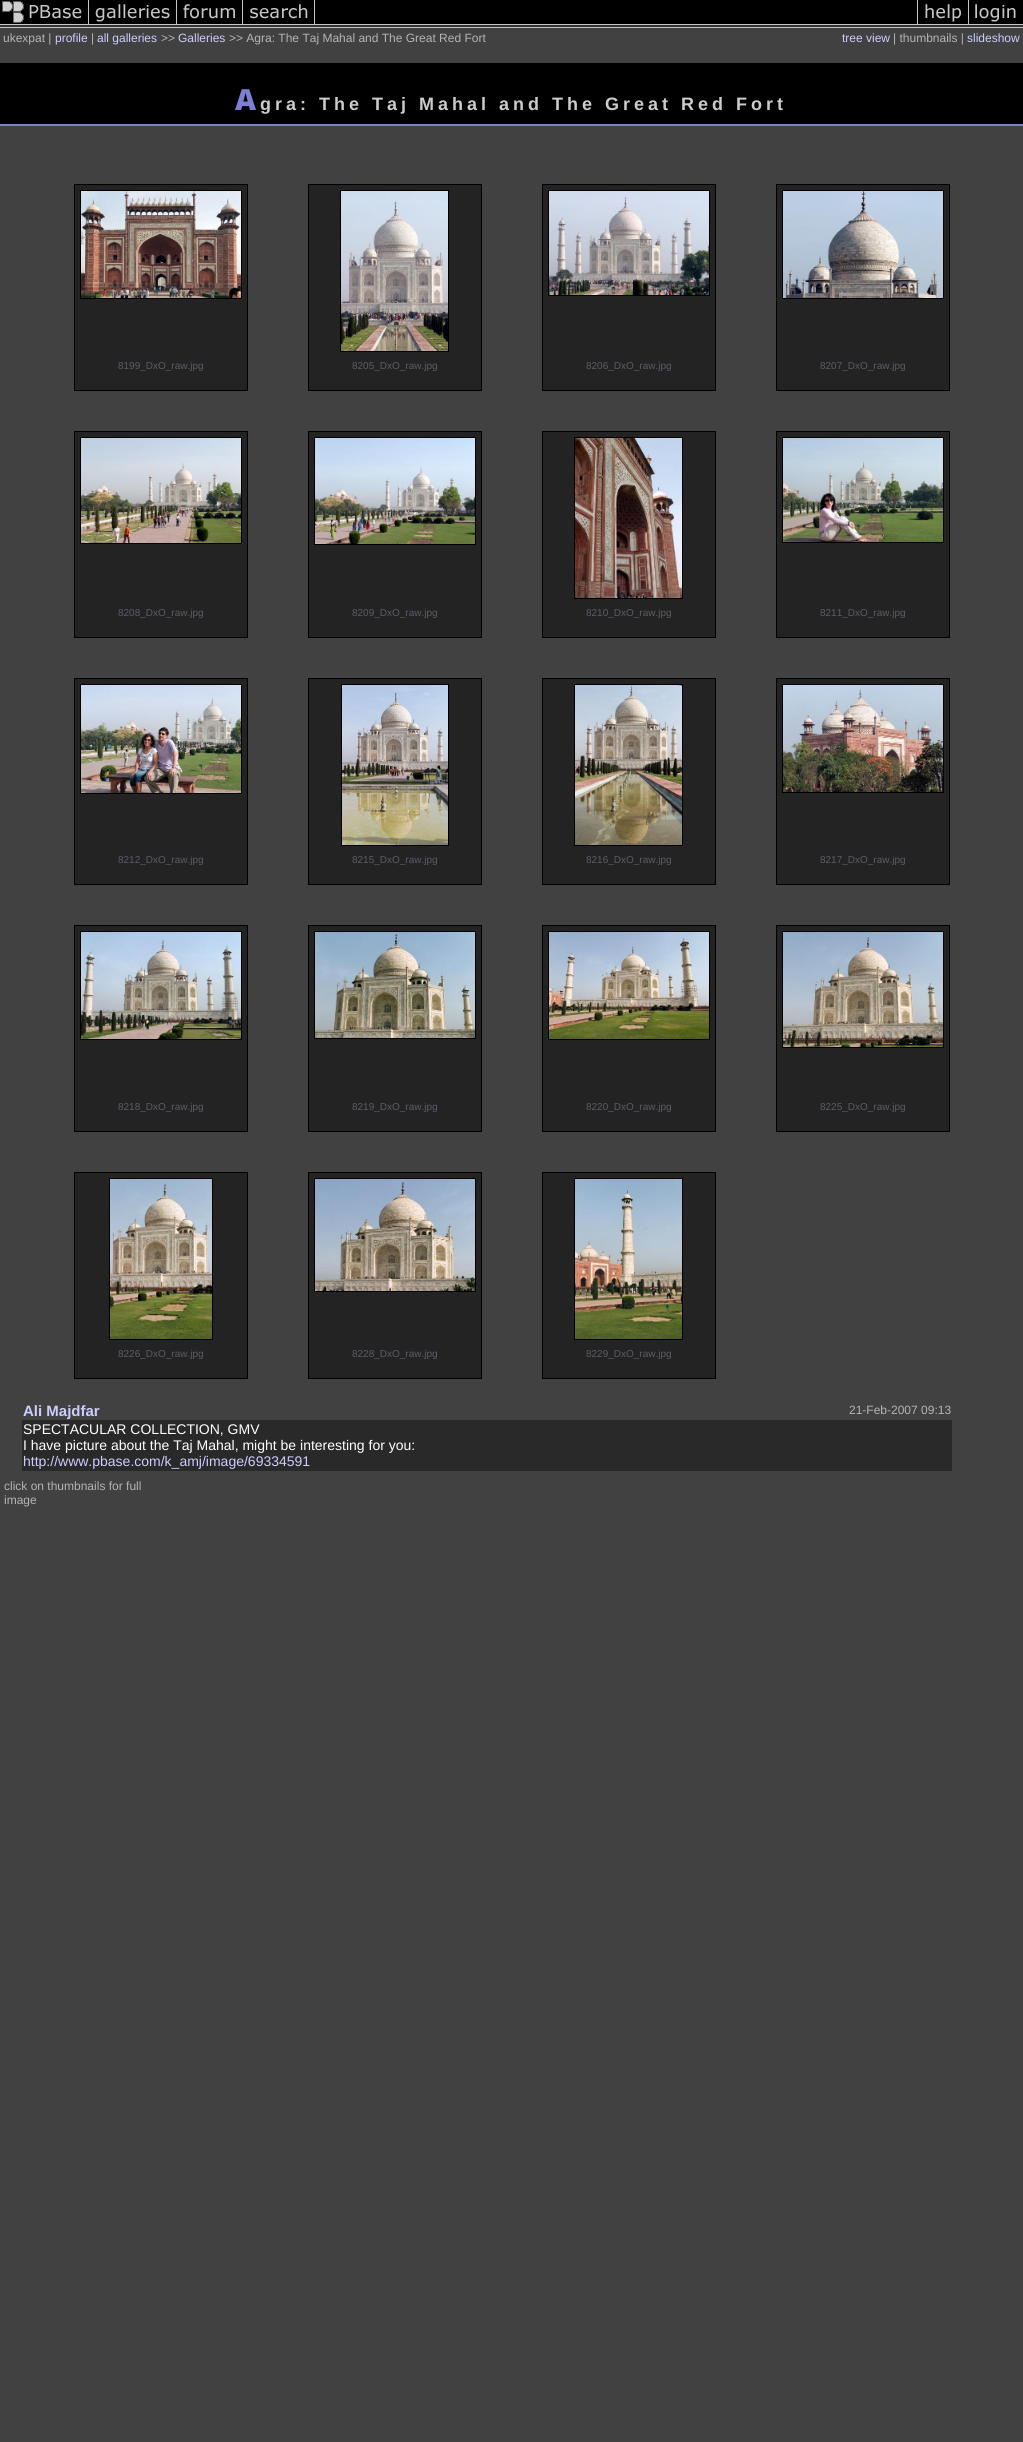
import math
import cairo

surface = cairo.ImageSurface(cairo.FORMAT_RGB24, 1023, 2442)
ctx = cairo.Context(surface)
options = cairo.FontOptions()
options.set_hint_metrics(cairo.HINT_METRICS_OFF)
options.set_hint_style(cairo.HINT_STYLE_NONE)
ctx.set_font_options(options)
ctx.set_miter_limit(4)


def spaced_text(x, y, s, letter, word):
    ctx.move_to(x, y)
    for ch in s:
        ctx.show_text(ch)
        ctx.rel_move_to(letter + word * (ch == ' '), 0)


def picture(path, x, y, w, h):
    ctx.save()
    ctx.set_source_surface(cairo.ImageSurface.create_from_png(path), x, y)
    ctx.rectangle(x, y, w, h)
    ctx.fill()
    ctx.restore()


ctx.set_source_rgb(0.255, 0.255, 0.255)
ctx.paint()
picture("img1.png", 0, 0, 89, 28)
picture("img2.png", 89, 0, 88, 28)
picture("img3.png", 177, 0, 66, 28)
picture("img4.png", 243, 0, 72, 28)
picture("img5.png", 315, 0, 602, 28)
picture("img6.png", 917, 0, 52, 28)
picture("img7.png", 969, 0, 54, 28)
ctx.select_font_face("Liberation Sans")
ctx.set_font_size(12)
ctx.set_source_rgb(0.706, 0.706, 0.706)
ctx.move_to(3, 42)
ctx.show_text("ukexpat |")
ctx.set_source_rgb(0.8, 0.8, 1)
ctx.move_to(55, 42)
ctx.show_text("profile")
ctx.set_source_rgb(0.706, 0.706, 0.706)
ctx.move_to(91, 42)
ctx.show_text("|")
ctx.set_source_rgb(0.8, 0.8, 1)
ctx.move_to(97, 42)
ctx.show_text("all galleries")
ctx.set_source_rgb(0.706, 0.706, 0.706)
ctx.move_to(161, 42)
ctx.show_text(">>")
ctx.set_source_rgb(0.8, 0.8, 1)
ctx.move_to(178, 42)
ctx.show_text("Galleries")
ctx.set_source_rgb(0.706, 0.706, 0.706)
ctx.move_to(229, 42)
ctx.show_text(">> Agra: The Taj Mahal and The Great Red Fort")
ctx.set_source_rgb(0.8, 0.8, 1)
ctx.move_to(842, 42)
ctx.show_text("tree view")
ctx.set_source_rgb(0.706, 0.706, 0.706)
ctx.move_to(893, 42)
ctx.show_text("| thumbnails |")
ctx.set_source_rgb(0.8, 0.8, 1)
ctx.move_to(967, 42)
ctx.show_text("slideshow")
ctx.set_source_rgb(0, 0, 0)
ctx.rectangle(0, 63, 1023, 61)
ctx.fill()
ctx.set_source_rgb(0.49, 0.498, 0.827)
ctx.rectangle(0, 124, 1023, 2)
ctx.fill()
ctx.select_font_face("Noto Sans Black")
ctx.set_font_size(29)
spaced_text(235, 110, "A", 4, 0)
ctx.select_font_face("Liberation Sans", cairo.FONT_SLANT_NORMAL, cairo.FONT_WEIGHT_BOLD)
ctx.set_font_size(18)
ctx.set_source_rgb(0.8, 0.8, 0.8)
spaced_text(260, 110, "gra: The Taj Mahal and The Great Red Fort", 4, 0)
ctx.set_source_rgb(0.137, 0.137, 0.137)
ctx.rectangle(74.5, 184.5, 173, 206)
ctx.fill_preserve()
ctx.set_source_rgb(0, 0, 0)
ctx.set_line_width(1)
ctx.stroke()
ctx.rectangle(80.5, 190.5, 161, 108)
ctx.stroke()
picture("img8.png", 81, 191, 160, 107)
ctx.select_font_face("Liberation Sans")
ctx.set_font_size(10)
ctx.set_source_rgb(0.357, 0.357, 0.396)
ctx.move_to(118, 369)
ctx.show_text("8199_DxO_raw.jpg")
ctx.set_source_rgb(0.137, 0.137, 0.137)
ctx.rectangle(308.5, 184.5, 173, 206)
ctx.fill_preserve()
ctx.set_source_rgb(0, 0, 0)
ctx.stroke()
ctx.rectangle(340.5, 190.5, 108, 161)
ctx.stroke()
picture("img9.png", 341, 191, 107, 160)
ctx.set_source_rgb(0.357, 0.357, 0.396)
ctx.move_to(352, 369)
ctx.show_text("8205_DxO_raw.jpg")
ctx.set_source_rgb(0.137, 0.137, 0.137)
ctx.rectangle(542.5, 184.5, 173, 206)
ctx.fill_preserve()
ctx.set_source_rgb(0, 0, 0)
ctx.stroke()
ctx.rectangle(548.5, 190.5, 161, 105)
ctx.stroke()
picture("img10.png", 549, 191, 160, 104)
ctx.set_source_rgb(0.357, 0.357, 0.396)
ctx.move_to(586, 369)
ctx.show_text("8206_DxO_raw.jpg")
ctx.set_source_rgb(0.137, 0.137, 0.137)
ctx.rectangle(776.5, 184.5, 173, 206)
ctx.fill_preserve()
ctx.set_source_rgb(0, 0, 0)
ctx.stroke()
ctx.rectangle(782.5, 190.5, 161, 108)
ctx.stroke()
picture("img11.png", 783, 191, 160, 107)
ctx.set_source_rgb(0.357, 0.357, 0.396)
ctx.move_to(820, 369)
ctx.show_text("8207_DxO_raw.jpg")
ctx.set_source_rgb(0.137, 0.137, 0.137)
ctx.rectangle(74.5, 431.5, 173, 206)
ctx.fill_preserve()
ctx.set_source_rgb(0, 0, 0)
ctx.stroke()
ctx.rectangle(80.5, 437.5, 161, 106)
ctx.stroke()
picture("img12.png", 81, 438, 160, 105)
ctx.set_source_rgb(0.357, 0.357, 0.396)
ctx.move_to(118, 616)
ctx.show_text("8208_DxO_raw.jpg")
ctx.set_source_rgb(0.137, 0.137, 0.137)
ctx.rectangle(308.5, 431.5, 173, 206)
ctx.fill_preserve()
ctx.set_source_rgb(0, 0, 0)
ctx.stroke()
ctx.rectangle(314.5, 437.5, 161, 107)
ctx.stroke()
picture("img13.png", 315, 438, 160, 106)
ctx.set_source_rgb(0.357, 0.357, 0.396)
ctx.move_to(352, 616)
ctx.show_text("8209_DxO_raw.jpg")
ctx.set_source_rgb(0.137, 0.137, 0.137)
ctx.rectangle(542.5, 431.5, 173, 206)
ctx.fill_preserve()
ctx.set_source_rgb(0, 0, 0)
ctx.stroke()
ctx.rectangle(574.5, 437.5, 108, 161)
ctx.stroke()
picture("img14.png", 575, 438, 107, 160)
ctx.set_source_rgb(0.357, 0.357, 0.396)
ctx.move_to(586, 616)
ctx.show_text("8210_DxO_raw.jpg")
ctx.set_source_rgb(0.137, 0.137, 0.137)
ctx.rectangle(776.5, 431.5, 173, 206)
ctx.fill_preserve()
ctx.set_source_rgb(0, 0, 0)
ctx.stroke()
ctx.rectangle(782.5, 437.5, 161, 105)
ctx.stroke()
picture("img15.png", 783, 438, 160, 104)
ctx.set_source_rgb(0.357, 0.357, 0.396)
ctx.move_to(820, 616)
ctx.show_text("8211_DxO_raw.jpg")
ctx.set_source_rgb(0.137, 0.137, 0.137)
ctx.rectangle(74.5, 678.5, 173, 206)
ctx.fill_preserve()
ctx.set_source_rgb(0, 0, 0)
ctx.stroke()
ctx.rectangle(80.5, 684.5, 161, 109)
ctx.stroke()
picture("img16.png", 81, 685, 160, 108)
ctx.set_source_rgb(0.357, 0.357, 0.396)
ctx.move_to(118, 863)
ctx.show_text("8212_DxO_raw.jpg")
ctx.set_source_rgb(0.137, 0.137, 0.137)
ctx.rectangle(308.5, 678.5, 173, 206)
ctx.fill_preserve()
ctx.set_source_rgb(0, 0, 0)
ctx.stroke()
ctx.rectangle(341.5, 684.5, 107, 161)
ctx.stroke()
picture("img17.png", 342, 685, 106, 160)
ctx.set_source_rgb(0.357, 0.357, 0.396)
ctx.move_to(352, 863)
ctx.show_text("8215_DxO_raw.jpg")
ctx.set_source_rgb(0.137, 0.137, 0.137)
ctx.rectangle(542.5, 678.5, 173, 206)
ctx.fill_preserve()
ctx.set_source_rgb(0, 0, 0)
ctx.stroke()
ctx.rectangle(574.5, 684.5, 108, 161)
ctx.stroke()
picture("img18.png", 575, 685, 107, 160)
ctx.set_source_rgb(0.357, 0.357, 0.396)
ctx.move_to(586, 863)
ctx.show_text("8216_DxO_raw.jpg")
ctx.set_source_rgb(0.137, 0.137, 0.137)
ctx.rectangle(776.5, 678.5, 173, 206)
ctx.fill_preserve()
ctx.set_source_rgb(0, 0, 0)
ctx.stroke()
ctx.rectangle(782.5, 684.5, 161, 108)
ctx.stroke()
picture("img19.png", 783, 685, 160, 107)
ctx.set_source_rgb(0.357, 0.357, 0.396)
ctx.move_to(820, 863)
ctx.show_text("8217_DxO_raw.jpg")
ctx.set_source_rgb(0.137, 0.137, 0.137)
ctx.rectangle(74.5, 925.5, 173, 206)
ctx.fill_preserve()
ctx.set_source_rgb(0, 0, 0)
ctx.stroke()
ctx.rectangle(80.5, 931.5, 161, 108)
ctx.stroke()
picture("img20.png", 81, 932, 160, 107)
ctx.set_source_rgb(0.357, 0.357, 0.396)
ctx.move_to(118, 1110)
ctx.show_text("8218_DxO_raw.jpg")
ctx.set_source_rgb(0.137, 0.137, 0.137)
ctx.rectangle(308.5, 925.5, 173, 206)
ctx.fill_preserve()
ctx.set_source_rgb(0, 0, 0)
ctx.stroke()
ctx.rectangle(314.5, 931.5, 161, 107)
ctx.stroke()
picture("img21.png", 315, 932, 160, 106)
ctx.set_source_rgb(0.357, 0.357, 0.396)
ctx.move_to(352, 1110)
ctx.show_text("8219_DxO_raw.jpg")
ctx.set_source_rgb(0.137, 0.137, 0.137)
ctx.rectangle(542.5, 925.5, 173, 206)
ctx.fill_preserve()
ctx.set_source_rgb(0, 0, 0)
ctx.stroke()
ctx.rectangle(548.5, 931.5, 161, 108)
ctx.stroke()
picture("img22.png", 549, 932, 160, 107)
ctx.set_source_rgb(0.357, 0.357, 0.396)
ctx.move_to(586, 1110)
ctx.show_text("8220_DxO_raw.jpg")
ctx.set_source_rgb(0.137, 0.137, 0.137)
ctx.rectangle(776.5, 925.5, 173, 206)
ctx.fill_preserve()
ctx.set_source_rgb(0, 0, 0)
ctx.stroke()
ctx.rectangle(782.5, 931.5, 161, 116)
ctx.stroke()
picture("img23.png", 783, 932, 160, 115)
ctx.set_source_rgb(0.357, 0.357, 0.396)
ctx.move_to(820, 1110)
ctx.show_text("8225_DxO_raw.jpg")
ctx.set_source_rgb(0.137, 0.137, 0.137)
ctx.rectangle(74.5, 1172.5, 173, 206)
ctx.fill_preserve()
ctx.set_source_rgb(0, 0, 0)
ctx.stroke()
ctx.rectangle(109.5, 1178.5, 103, 161)
ctx.stroke()
picture("img24.png", 110, 1179, 102, 160)
ctx.set_source_rgb(0.357, 0.357, 0.396)
ctx.move_to(118, 1357)
ctx.show_text("8226_DxO_raw.jpg")
ctx.set_source_rgb(0.137, 0.137, 0.137)
ctx.rectangle(308.5, 1172.5, 173, 206)
ctx.fill_preserve()
ctx.set_source_rgb(0, 0, 0)
ctx.stroke()
ctx.rectangle(314.5, 1178.5, 161, 113)
ctx.stroke()
picture("img25.png", 315, 1179, 160, 112)
ctx.set_source_rgb(0.357, 0.357, 0.396)
ctx.move_to(352, 1357)
ctx.show_text("8228_DxO_raw.jpg")
ctx.set_source_rgb(0.137, 0.137, 0.137)
ctx.rectangle(542.5, 1172.5, 173, 206)
ctx.fill_preserve()
ctx.set_source_rgb(0, 0, 0)
ctx.stroke()
ctx.rectangle(574.5, 1178.5, 108, 161)
ctx.stroke()
picture("img26.png", 575, 1179, 107, 160)
ctx.set_source_rgb(0.357, 0.357, 0.396)
ctx.move_to(586, 1357)
ctx.show_text("8229_DxO_raw.jpg")
ctx.select_font_face("Liberation Sans", cairo.FONT_SLANT_NORMAL, cairo.FONT_WEIGHT_BOLD)
ctx.set_font_size(15)
ctx.set_source_rgb(0.8, 0.8, 1)
ctx.move_to(23, 1416)
ctx.show_text("Ali Majdfar")
ctx.select_font_face("Liberation Sans")
ctx.set_font_size(12)
ctx.set_source_rgb(0.706, 0.706, 0.706)
ctx.move_to(849, 1414)
ctx.show_text("21-Feb-2007 09:13")
ctx.set_source_rgb(0.161, 0.161, 0.161)
ctx.rectangle(22, 1420, 930, 51)
ctx.fill()
ctx.set_font_size(14)
ctx.set_source_rgb(1, 1, 1)
ctx.move_to(23, 1434)
ctx.show_text("SPECTACULAR COLLECTION, GMV")
ctx.move_to(23, 1450)
ctx.show_text("I have picture about the Taj Mahal, might be interesting for you:")
ctx.set_source_rgb(0.8, 0.8, 1)
ctx.move_to(23, 1466)
ctx.show_text("http://www.pbase.com/k_amj/image/69334591")
ctx.set_font_size(12)
ctx.set_source_rgb(0.706, 0.706, 0.706)
ctx.move_to(4, 1490)
ctx.show_text("click on thumbnails for full")
ctx.move_to(4, 1504)
ctx.show_text("image")
surface.write_to_png("page.png")
